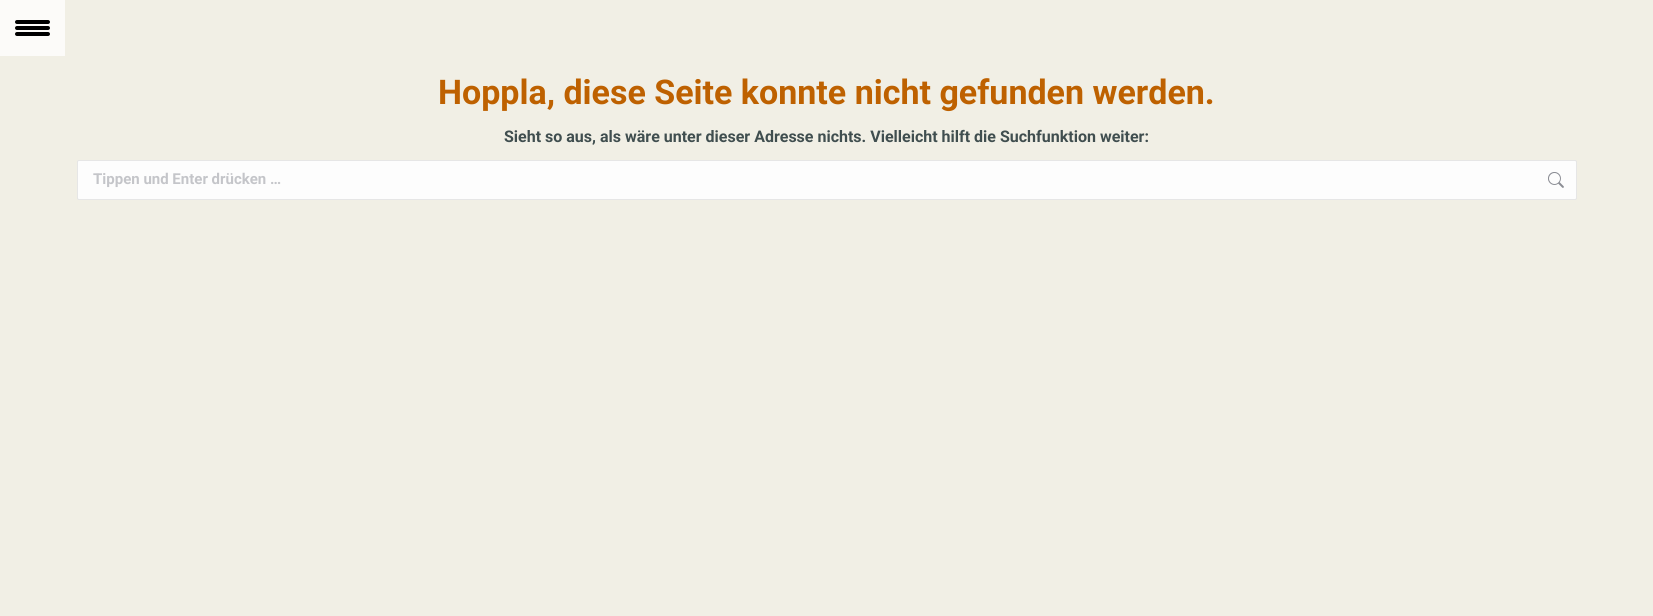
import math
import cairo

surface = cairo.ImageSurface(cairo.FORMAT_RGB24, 1653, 616)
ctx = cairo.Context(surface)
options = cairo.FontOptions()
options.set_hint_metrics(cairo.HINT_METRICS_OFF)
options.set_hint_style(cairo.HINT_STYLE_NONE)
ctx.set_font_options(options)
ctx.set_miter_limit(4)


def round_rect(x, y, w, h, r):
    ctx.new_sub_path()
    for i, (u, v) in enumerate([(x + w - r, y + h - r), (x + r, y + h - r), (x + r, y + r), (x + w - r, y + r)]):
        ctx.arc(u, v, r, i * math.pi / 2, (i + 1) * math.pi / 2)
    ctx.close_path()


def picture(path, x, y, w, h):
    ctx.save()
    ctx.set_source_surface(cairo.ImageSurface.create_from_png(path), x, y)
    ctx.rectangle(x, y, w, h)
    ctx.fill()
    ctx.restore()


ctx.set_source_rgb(0.945, 0.937, 0.898)
ctx.paint()
ctx.set_source_rgb(0.988, 0.984, 0.976)
ctx.rectangle(0, 0, 65, 56)
ctx.fill()
ctx.set_source_rgb(0, 0, 0)
round_rect(15, 20, 35, 4, 2)
ctx.fill()
round_rect(15, 26, 35, 4, 2)
ctx.fill()
round_rect(15, 32, 35, 4, 2)
ctx.fill()
ctx.select_font_face("Roboto", cairo.FONT_SLANT_NORMAL, cairo.FONT_WEIGHT_BOLD)
ctx.set_font_size(34)
ctx.set_source_rgb(0.745, 0.38, 0)
ctx.move_to(438, 104)
ctx.show_text("Hoppla, diese Seite konnte nicht gefunden werden.")
ctx.set_font_size(16)
ctx.set_source_rgb(0.251, 0.306, 0.31)
ctx.move_to(504, 142)
ctx.show_text("Sieht so aus, als wäre unter dieser Adresse nichts. Vielleicht hilft die Suchfunktion weiter:")
ctx.set_source_rgb(0.992, 0.992, 0.992)
round_rect(77, 160, 1500, 40, 2)
ctx.fill()
round_rect(77.5, 160.5, 1499, 39, 1.5)
ctx.set_source_rgba(0.2, 0.2, 0.2, 0.11)
ctx.set_line_width(1)
ctx.stroke()
ctx.set_font_size(15)
ctx.set_source_rgb(0.769, 0.773, 0.788)
ctx.move_to(93, 184)
ctx.show_text("Tippen und Enter drücken …")
picture("img1.png", 1548, 172, 16, 16)
surface.write_to_png("page.png")
